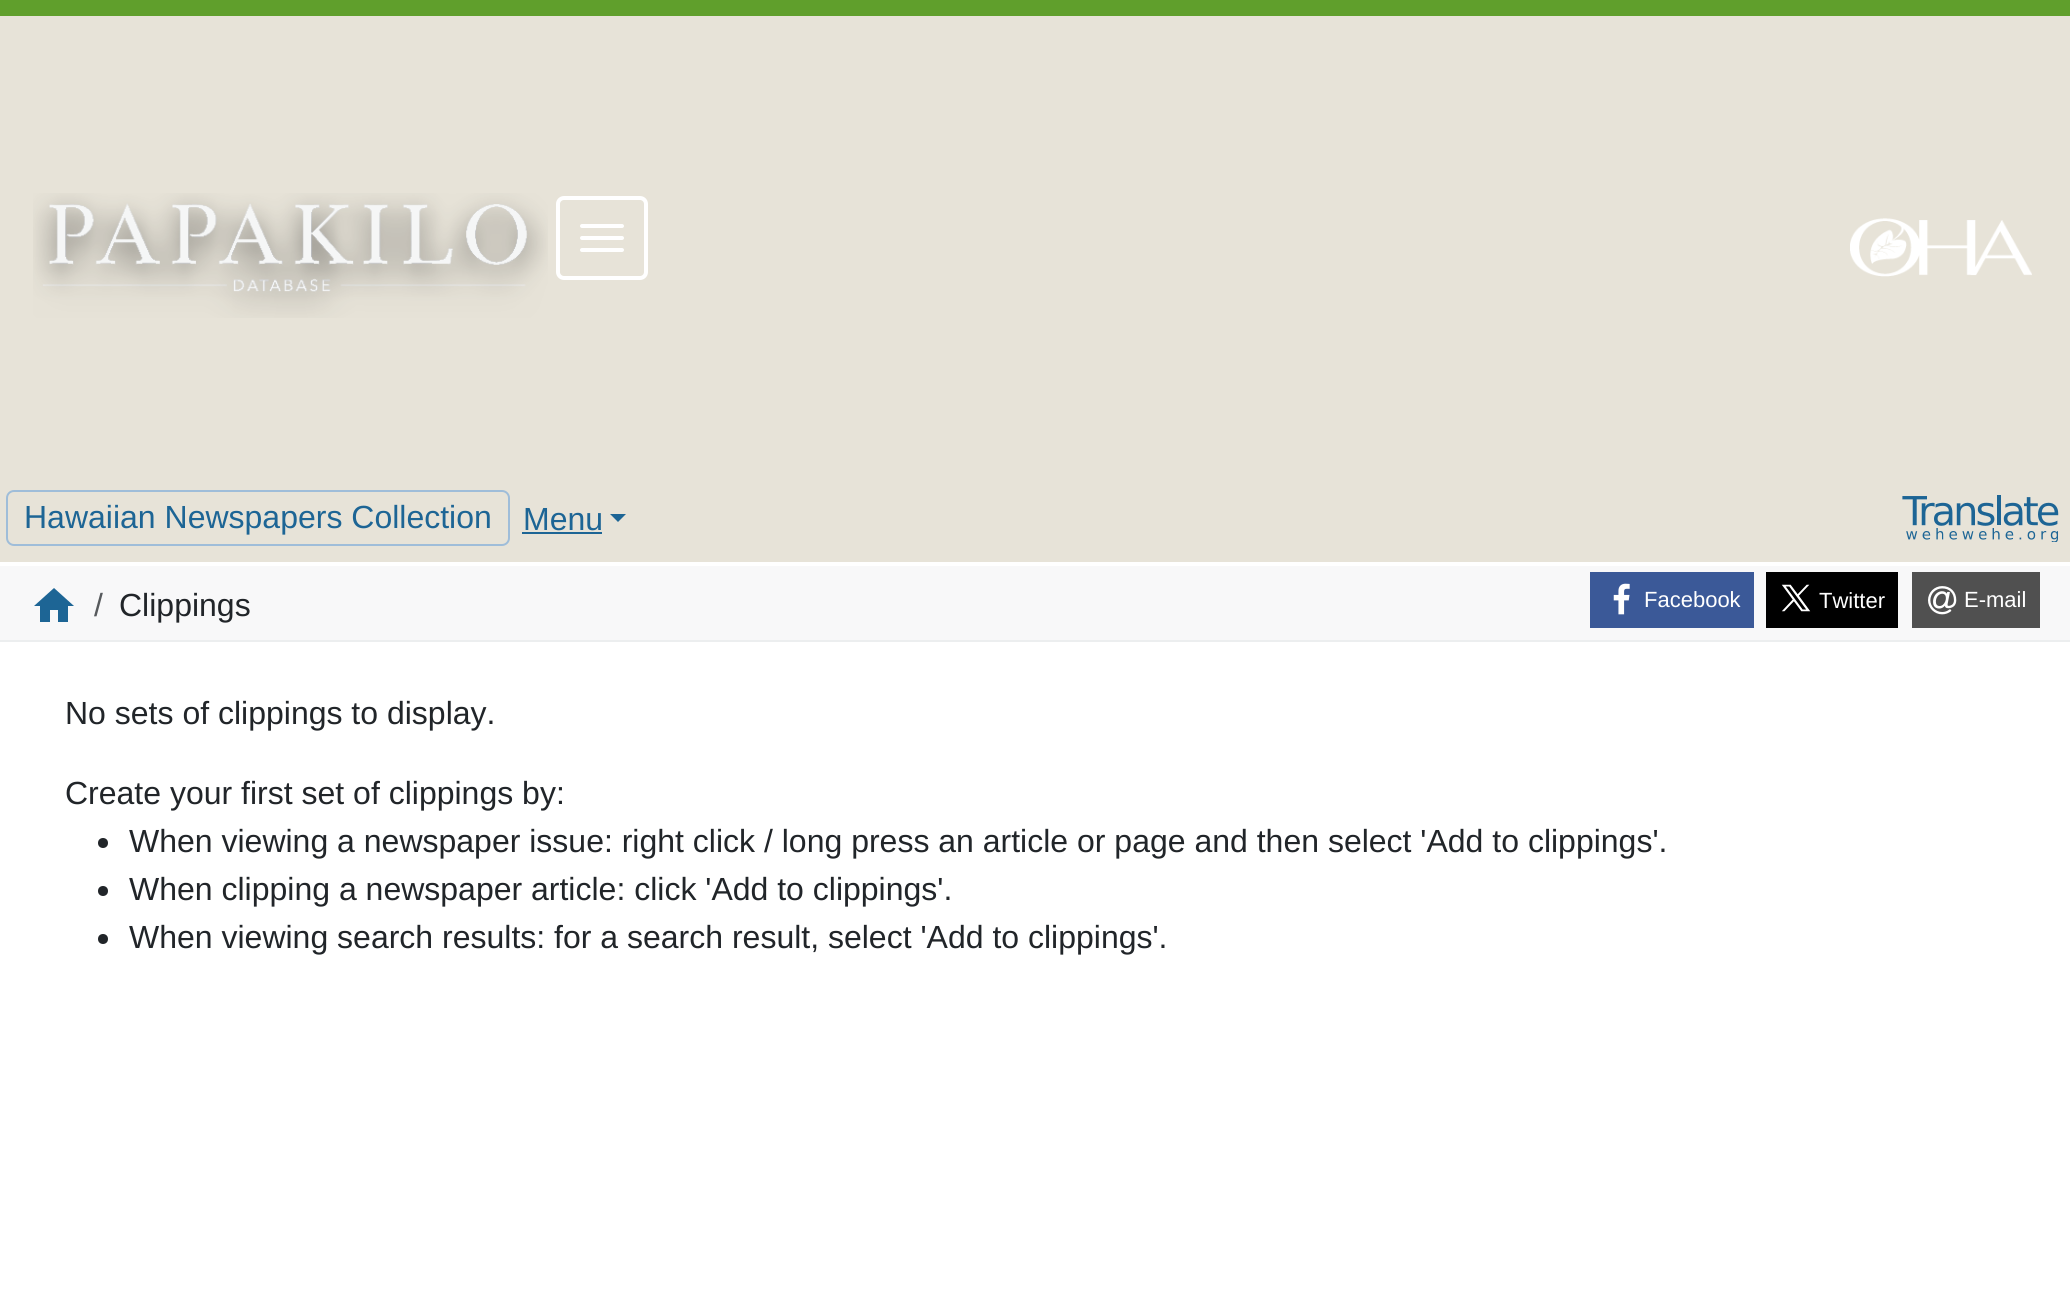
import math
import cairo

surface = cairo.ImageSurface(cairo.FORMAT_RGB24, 2070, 1310)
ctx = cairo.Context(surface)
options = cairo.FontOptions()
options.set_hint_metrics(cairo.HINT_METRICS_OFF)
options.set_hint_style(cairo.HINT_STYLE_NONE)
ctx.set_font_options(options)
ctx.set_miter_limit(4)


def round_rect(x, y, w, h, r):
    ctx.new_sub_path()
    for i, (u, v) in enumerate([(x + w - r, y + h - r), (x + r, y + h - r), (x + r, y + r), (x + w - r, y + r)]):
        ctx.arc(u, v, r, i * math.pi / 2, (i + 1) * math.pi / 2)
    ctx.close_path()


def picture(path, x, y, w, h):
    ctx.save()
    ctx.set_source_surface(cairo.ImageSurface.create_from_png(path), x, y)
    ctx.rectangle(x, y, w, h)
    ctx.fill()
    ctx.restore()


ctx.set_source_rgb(1, 1, 1)
ctx.paint()
ctx.set_source_rgb(0.376, 0.624, 0.173)
ctx.rectangle(0, 0, 2070, 16)
ctx.fill()
ctx.set_source_rgb(0.906, 0.89, 0.847)
ctx.rectangle(0, 16, 2070, 546)
ctx.fill()
picture("img1.png", 33, 193, 515, 125)
round_rect(558, 198, 88, 80, 6)
ctx.set_source_rgb(1, 1, 1)
ctx.set_line_width(4)
ctx.stroke()
round_rect(580, 224, 44, 4, 2)
ctx.fill()
round_rect(580, 236, 44, 4, 2)
ctx.fill()
round_rect(580, 248, 44, 4, 2)
ctx.fill()
picture("img2.png", 1850, 218, 182, 59)
round_rect(7, 491, 502, 54, 7)
ctx.set_source_rgb(0.624, 0.741, 0.851)
ctx.set_line_width(2)
ctx.stroke()
ctx.select_font_face("Liberation Sans")
ctx.set_font_size(32)
ctx.set_source_rgb(0.114, 0.396, 0.584)
ctx.move_to(24, 528)
ctx.show_text("Hawaiian Newspapers Collection")
ctx.move_to(523, 530)
ctx.show_text("Menu")
ctx.rectangle(522, 532, 80, 2)
ctx.fill()
ctx.new_path()
ctx.move_to(610, 514)
ctx.line_to(626, 514)
ctx.line_to(618, 522)
ctx.close_path()
ctx.fill()
picture("img3.png", 1902, 495, 157, 47)
ctx.set_source_rgb(0.969, 0.969, 0.976)
ctx.rectangle(0, 566, 2070, 74)
ctx.fill()
ctx.set_source_rgb(0.925, 0.933, 0.937)
ctx.rectangle(0, 640, 2070, 2)
ctx.fill()
ctx.set_source_rgb(0.114, 0.396, 0.584)
ctx.new_path()
ctx.move_to(50, 622)
ctx.line_to(50, 610)
ctx.line_to(58, 610)
ctx.line_to(58, 622)
ctx.line_to(68, 622)
ctx.line_to(68, 606)
ctx.line_to(74, 606)
ctx.line_to(54, 588)
ctx.line_to(34, 606)
ctx.line_to(40, 606)
ctx.line_to(40, 622)
ctx.close_path()
ctx.fill()
ctx.set_source_rgb(0.341, 0.353, 0.365)
ctx.move_to(94, 616)
ctx.show_text("/")
ctx.set_source_rgb(0.129, 0.145, 0.161)
ctx.move_to(119, 616)
ctx.show_text("Clippings")
ctx.set_source_rgb(0.231, 0.349, 0.596)
ctx.rectangle(1590, 572, 164, 56)
ctx.fill()
picture("img4.png", 1613, 583, 17, 32)
ctx.set_font_size(22)
ctx.set_source_rgb(1, 1, 1)
ctx.move_to(1644, 607)
ctx.show_text("Facebook")
ctx.set_source_rgb(0, 0, 0)
ctx.rectangle(1766, 572, 132, 56)
ctx.fill()
picture("img5.png", 1781, 584, 30, 28)
ctx.set_source_rgb(1, 1, 1)
ctx.move_to(1819, 608)
ctx.show_text("Twitter")
ctx.set_source_rgb(0.314, 0.314, 0.314)
ctx.rectangle(1912, 572, 128, 56)
ctx.fill()
picture("img6.png", 1928, 586, 29, 29)
ctx.set_source_rgb(1, 1, 1)
ctx.move_to(1964, 607)
ctx.show_text("E-mail")
ctx.set_font_size(32)
ctx.set_source_rgb(0.129, 0.145, 0.161)
ctx.move_to(65, 724)
ctx.show_text("No sets of clippings to display.")
ctx.move_to(65, 804)
ctx.show_text("Create your first set of clippings by:")
ctx.new_path()
ctx.arc(103, 843, 5, 0, 2 * math.pi)
ctx.fill()
ctx.move_to(129, 852)
ctx.show_text("When viewing a newspaper issue: right click / long press an article or page and then select 'Add to clippings'.")
ctx.new_path()
ctx.arc(103, 891, 5, 0, 2 * math.pi)
ctx.fill()
ctx.move_to(129, 900)
ctx.show_text("When clipping a newspaper article: click 'Add to clippings'.")
ctx.new_path()
ctx.arc(103, 939, 5, 0, 2 * math.pi)
ctx.fill()
ctx.move_to(129, 948)
ctx.show_text("When viewing search results: for a search result, select 'Add to clippings'.")
surface.write_to_png("page.png")
